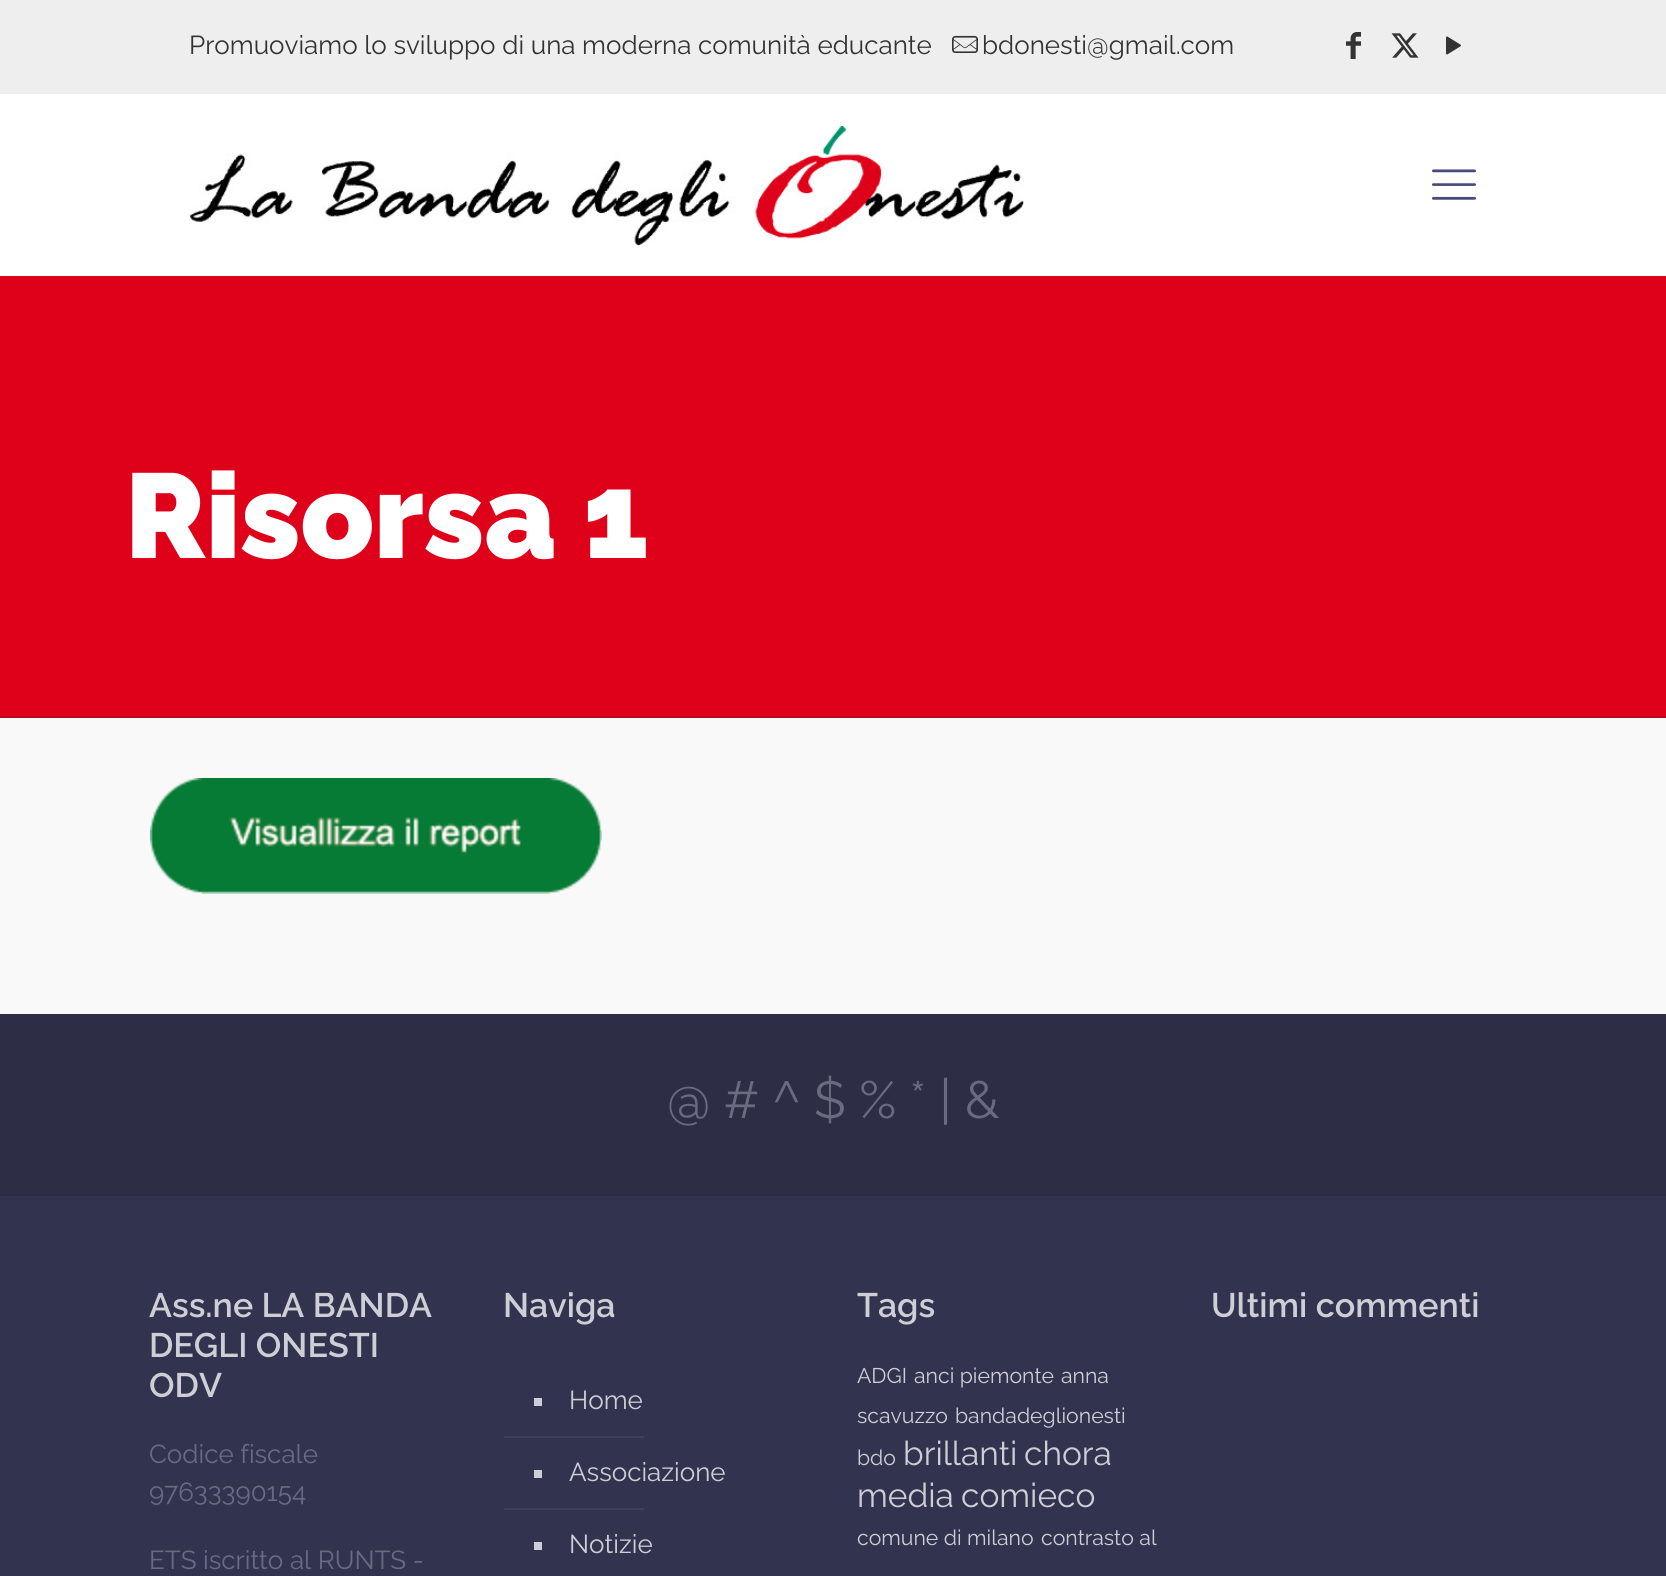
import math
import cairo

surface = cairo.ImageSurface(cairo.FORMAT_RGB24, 1666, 1576)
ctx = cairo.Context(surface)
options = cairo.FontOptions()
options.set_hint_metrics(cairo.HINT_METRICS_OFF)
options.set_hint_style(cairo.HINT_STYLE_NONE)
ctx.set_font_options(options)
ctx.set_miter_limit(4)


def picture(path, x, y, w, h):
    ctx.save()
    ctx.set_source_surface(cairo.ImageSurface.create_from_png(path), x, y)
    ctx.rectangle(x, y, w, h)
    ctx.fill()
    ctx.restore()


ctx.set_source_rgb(0.976, 0.976, 0.976)
ctx.paint()
ctx.set_source_rgb(0.875, 0.004, 0.102)
ctx.rectangle(0, 276, 1666, 440)
ctx.fill()
ctx.set_source_rgb(0.933, 0.933, 0.933)
ctx.rectangle(0, 0, 1666, 94)
ctx.fill()
ctx.select_font_face("Raleway Thin")
ctx.set_font_size(26)
ctx.set_source_rgb(0.2, 0.2, 0.2)
ctx.move_to(189, 54)
ctx.show_text("Promuoviamo lo sviluppo di una moderna comunità educante")
picture("img1.png", 952, 35, 26, 18)
ctx.move_to(982, 54)
ctx.show_text("bdonesti@gmail.com")
picture("img2.png", 1346, 32, 15, 27)
picture("img3.png", 1391, 33, 28, 25)
picture("img4.png", 1446, 36, 15, 19)
ctx.set_source_rgb(1, 1, 1)
ctx.rectangle(0, 94, 1666, 182)
ctx.fill()
picture("img5.png", 190, 126, 834, 120)
picture("img6.png", 1432, 169, 44, 31)
ctx.set_source_rgb(0.788, 0.004, 0.09)
ctx.rectangle(0, 716, 1666, 2)
ctx.fill()
ctx.select_font_face("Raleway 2 Thin")
ctx.set_font_size(120)
ctx.set_source_rgb(1, 1, 1)
ctx.move_to(125, 558)
ctx.show_text("Risorsa 1")
picture("img7.png", 150, 778, 452, 116)
ctx.set_source_rgb(0.196, 0.2, 0.306)
ctx.rectangle(0, 1196, 1666, 380)
ctx.fill()
ctx.set_source_rgb(0.176, 0.18, 0.275)
ctx.rectangle(0, 1014, 1666, 182)
ctx.fill()
ctx.select_font_face("Raleway Thin")
ctx.set_font_size(52)
ctx.set_source_rgb(0.416, 0.42, 0.506)
ctx.move_to(667, 1118)
ctx.show_text("@ # ^ $ % * | &")
ctx.select_font_face("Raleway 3 Thin")
ctx.set_font_size(34)
ctx.set_source_rgb(0.808, 0.812, 0.839)
ctx.move_to(149, 1317)
ctx.show_text("Ass.ne LA BANDA")
ctx.move_to(149, 1357)
ctx.show_text("DEGLI ONESTI")
ctx.move_to(149, 1397)
ctx.show_text("ODV")
ctx.select_font_face("Raleway Thin")
ctx.set_font_size(26)
ctx.set_source_rgb(0.416, 0.42, 0.506)
ctx.move_to(149, 1463)
ctx.show_text("Codice fiscale")
ctx.move_to(149, 1501)
ctx.show_text("97633390154")
ctx.move_to(149, 1569)
ctx.show_text("ETS iscritto al RUNTS -")
ctx.select_font_face("Raleway 3 Thin")
ctx.set_font_size(34)
ctx.set_source_rgb(0.808, 0.812, 0.839)
ctx.move_to(503, 1317)
ctx.show_text("Naviga")
ctx.rectangle(534, 1398, 8, 8)
ctx.fill()
ctx.select_font_face("Raleway Thin")
ctx.set_font_size(26)
ctx.move_to(569, 1409)
ctx.show_text("Home")
ctx.set_source_rgb(0.255, 0.255, 0.353)
ctx.rectangle(504, 1436, 140, 2)
ctx.fill()
ctx.set_source_rgb(0.808, 0.812, 0.839)
ctx.rectangle(534, 1470, 8, 8)
ctx.fill()
ctx.move_to(569, 1481)
ctx.show_text("Associazione")
ctx.set_source_rgb(0.255, 0.255, 0.353)
ctx.rectangle(504, 1508, 140, 2)
ctx.fill()
ctx.set_source_rgb(0.808, 0.812, 0.839)
ctx.rectangle(534, 1542, 8, 8)
ctx.fill()
ctx.move_to(569, 1553)
ctx.show_text("Notizie")
ctx.select_font_face("Raleway 3 Thin")
ctx.set_font_size(34)
ctx.move_to(857, 1317)
ctx.show_text("Tags")
ctx.select_font_face("Raleway Thin")
ctx.set_font_size(21.25)
ctx.move_to(857, 1383)
ctx.show_text("ADGI")
ctx.move_to(914, 1383)
ctx.show_text("anci piemonte")
ctx.move_to(1061, 1383)
ctx.show_text("anna")
ctx.move_to(857, 1423)
ctx.show_text("scavuzzo")
ctx.move_to(955, 1423)
ctx.show_text("bandadeglionesti")
ctx.move_to(857, 1465)
ctx.show_text("bdo")
ctx.set_font_size(33.5)
ctx.move_to(903, 1465)
ctx.show_text("brillanti")
ctx.move_to(1024, 1465)
ctx.show_text("chora")
ctx.move_to(857, 1507)
ctx.show_text("media")
ctx.move_to(961, 1507)
ctx.show_text("comieco")
ctx.set_font_size(21.25)
ctx.move_to(857, 1545)
ctx.show_text("comune di milano")
ctx.move_to(1041, 1545)
ctx.show_text("contrasto al")
ctx.select_font_face("Raleway 3 Thin")
ctx.set_font_size(34)
ctx.move_to(1211, 1317)
ctx.show_text("Ultimi commenti")
surface.write_to_png("page.png")
